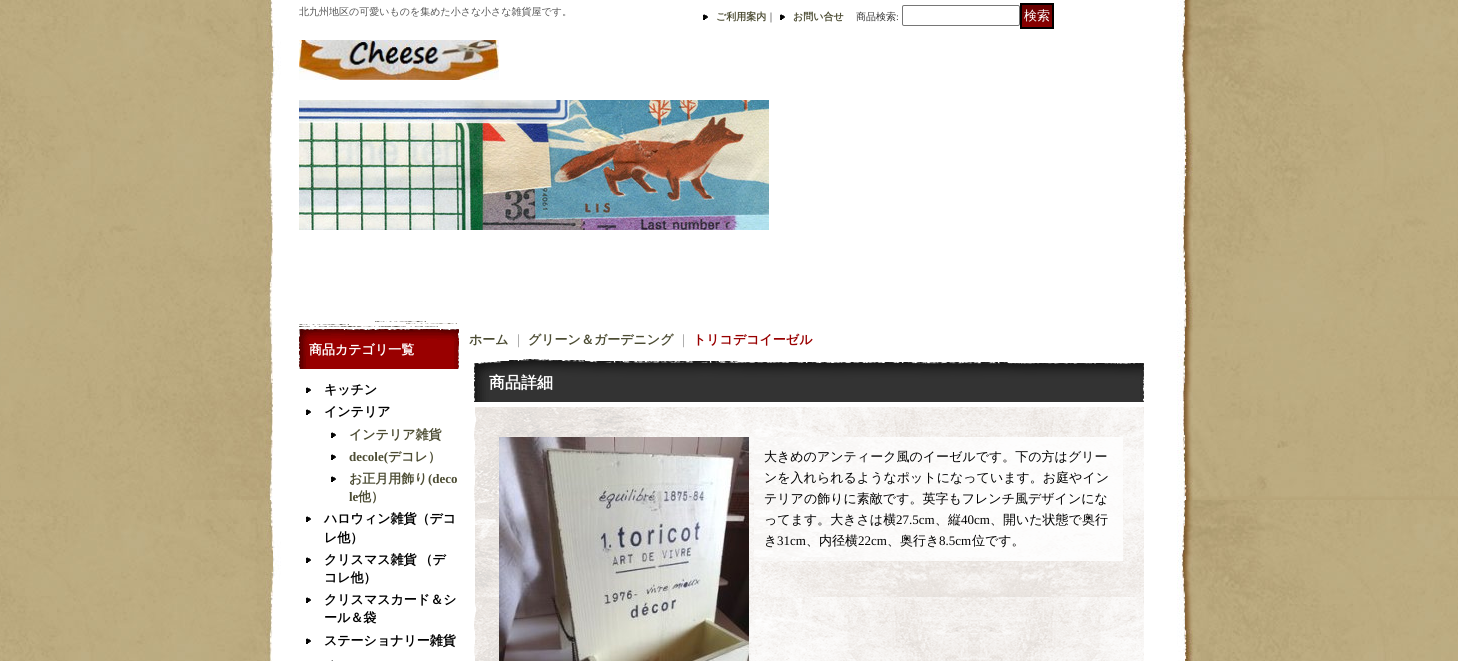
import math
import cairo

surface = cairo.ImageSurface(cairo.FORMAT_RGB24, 1458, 661)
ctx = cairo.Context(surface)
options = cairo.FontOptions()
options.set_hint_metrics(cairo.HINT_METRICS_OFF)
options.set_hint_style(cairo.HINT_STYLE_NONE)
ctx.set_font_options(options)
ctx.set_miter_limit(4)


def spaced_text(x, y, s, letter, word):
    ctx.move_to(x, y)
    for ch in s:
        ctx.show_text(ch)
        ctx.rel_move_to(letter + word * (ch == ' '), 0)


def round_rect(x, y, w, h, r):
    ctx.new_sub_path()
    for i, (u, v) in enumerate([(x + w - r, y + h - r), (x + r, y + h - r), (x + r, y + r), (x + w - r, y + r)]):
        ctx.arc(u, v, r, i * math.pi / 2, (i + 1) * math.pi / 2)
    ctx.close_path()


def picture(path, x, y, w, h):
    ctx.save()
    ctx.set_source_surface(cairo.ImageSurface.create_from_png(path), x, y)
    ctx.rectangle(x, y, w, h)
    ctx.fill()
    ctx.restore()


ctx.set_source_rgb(1, 1, 1)
ctx.paint()
picture("img1.png", 0, 0, 1458, 661)
picture("img2.png", 299, 100, 470, 130)
ctx.select_font_face("WenQuanYi Zen Hei Medium")
ctx.set_font_size(10)
ctx.set_source_rgb(0.333, 0.333, 0.333)
ctx.move_to(299, 15)
ctx.show_text("北九州地区の可愛いものを集めた小さな小さな雑貨屋です。")
picture("img3.png", 703, 14, 5, 6)
ctx.select_font_face("WenQuanYi Zen Hei", cairo.FONT_SLANT_NORMAL, cairo.FONT_WEIGHT_BOLD)
ctx.set_source_rgb(0.298, 0.298, 0.2)
ctx.move_to(716, 20)
ctx.show_text("ご利用案内")
ctx.select_font_face("WenQuanYi Zen Hei Medium")
ctx.set_source_rgb(0.2, 0.2, 0.2)
ctx.move_to(766, 20)
ctx.show_text("｜")
picture("img3.png", 780, 14, 5, 6)
ctx.select_font_face("WenQuanYi Zen Hei", cairo.FONT_SLANT_NORMAL, cairo.FONT_WEIGHT_BOLD)
ctx.set_source_rgb(0.298, 0.298, 0.2)
ctx.move_to(793, 20)
ctx.show_text("お問い合せ")
ctx.select_font_face("WenQuanYi Zen Hei Medium")
ctx.set_source_rgb(0.2, 0.2, 0.2)
ctx.move_to(856, 20)
ctx.show_text("商品検索")
ctx.select_font_face("Liberation Serif")
ctx.move_to(896, 20)
ctx.show_text(":")
round_rect(902.5, 5.5, 117, 20, 1.5)
ctx.set_source_rgb(0.463, 0.463, 0.463)
ctx.set_line_width(1)
ctx.stroke()
picture("img4.png", 1022, 5, 30, 22)
ctx.rectangle(1021, 4, 32, 24)
ctx.set_source_rgb(0, 0, 0)
ctx.set_line_width(2)
ctx.stroke()
ctx.select_font_face("WenQuanYi Zen Hei Medium")
ctx.set_font_size(13)
ctx.set_source_rgb(1, 1, 1)
ctx.move_to(1024, 20)
ctx.show_text("検索")
picture("img5.png", 299, 40, 200, 40)
picture("img6.png", 299, 321, 160, 48)
ctx.select_font_face("WenQuanYi Zen Hei", cairo.FONT_SLANT_NORMAL, cairo.FONT_WEIGHT_BOLD)
ctx.move_to(309, 354)
ctx.show_text("商品カテゴリ一覧")
picture("img3.png", 306, 387, 5, 6)
ctx.set_source_rgb(0, 0, 0)
ctx.move_to(324, 394)
ctx.show_text("キッチン")
picture("img3.png", 306, 409, 5, 6)
ctx.move_to(324, 416)
ctx.show_text("インテリア")
picture("img3.png", 331, 432, 5, 6)
ctx.set_source_rgb(0.298, 0.298, 0.2)
ctx.move_to(349, 439)
ctx.show_text("インテリア雑貨")
picture("img3.png", 331, 454, 5, 6)
ctx.select_font_face("Liberation Serif", cairo.FONT_SLANT_NORMAL, cairo.FONT_WEIGHT_BOLD)
ctx.move_to(349, 461)
ctx.show_text("decole(")
ctx.select_font_face("WenQuanYi Zen Hei", cairo.FONT_SLANT_NORMAL, cairo.FONT_WEIGHT_BOLD)
ctx.move_to(388, 461)
ctx.show_text("デコレ）")
picture("img3.png", 331, 476, 5, 6)
ctx.move_to(349, 483)
ctx.show_text("お正月用飾り")
ctx.select_font_face("Liberation Serif", cairo.FONT_SLANT_NORMAL, cairo.FONT_WEIGHT_BOLD)
ctx.move_to(428, 483)
ctx.show_text("(deco")
ctx.move_to(349, 501)
ctx.show_text("le")
ctx.select_font_face("WenQuanYi Zen Hei", cairo.FONT_SLANT_NORMAL, cairo.FONT_WEIGHT_BOLD)
ctx.move_to(358, 501)
ctx.show_text("他）")
picture("img3.png", 306, 516, 5, 6)
ctx.set_source_rgb(0, 0, 0)
ctx.move_to(324, 523)
ctx.show_text("ハロウィン雑貨（デコ")
ctx.move_to(324, 542)
ctx.show_text("レ他）")
picture("img3.png", 306, 557, 5, 6)
spaced_text(324, 564, "クリスマス雑貨 （デ", 0, -1)
ctx.move_to(324, 582)
ctx.show_text("コレ他）")
picture("img3.png", 306, 597, 5, 6)
ctx.move_to(324, 604)
ctx.show_text("クリスマスカード＆シ")
ctx.move_to(324, 622)
ctx.show_text("ール＆袋")
picture("img3.png", 306, 638, 5, 6)
ctx.move_to(324, 645)
ctx.show_text("ステーショナリー雑貨")
picture("img7.png", 331, 660, 2, 1)
ctx.set_source_rgb(0.298, 0.298, 0.2)
ctx.move_to(469, 344)
ctx.show_text("ホーム")
ctx.select_font_face("WenQuanYi Zen Hei Medium")
ctx.set_source_rgb(0.6, 0.6, 0.6)
ctx.move_to(512, 344)
ctx.show_text("｜")
ctx.select_font_face("WenQuanYi Zen Hei", cairo.FONT_SLANT_NORMAL, cairo.FONT_WEIGHT_BOLD)
ctx.set_source_rgb(0.298, 0.298, 0.2)
ctx.move_to(528, 344)
ctx.show_text("グリーン＆ガーデニング")
ctx.select_font_face("WenQuanYi Zen Hei Medium")
ctx.set_source_rgb(0.6, 0.6, 0.6)
ctx.move_to(677, 344)
ctx.show_text("｜")
ctx.select_font_face("WenQuanYi Zen Hei", cairo.FONT_SLANT_NORMAL, cairo.FONT_WEIGHT_BOLD)
ctx.set_source_rgb(0.6, 0, 0)
ctx.move_to(693, 344)
ctx.show_text("トリコデコイーゼル")
picture("img8.png", 474, 359, 670, 43)
ctx.set_font_size(16)
ctx.set_source_rgb(1, 1, 1)
ctx.move_to(489, 388)
ctx.show_text("商品詳細")
picture("img9.png", 474, 407, 670, 254)
picture("img10.png", 499, 437, 250, 224)
picture("img11.png", 754, 437, 369, 124)
ctx.select_font_face("WenQuanYi Zen Hei Medium")
ctx.set_font_size(13)
ctx.set_source_rgb(0, 0, 0)
ctx.move_to(764, 461)
ctx.show_text("大きめのアンティーク風のイーゼルです。下の方はグリー")
ctx.move_to(764, 482)
ctx.show_text("ンを入れられるようなポットになっています。お庭やイン")
ctx.move_to(764, 503)
ctx.show_text("テリアの飾りに素敵です。英字もフレンチ風デザインにな")
ctx.move_to(764, 524)
ctx.show_text("ってます。大きさは横")
ctx.select_font_face("Liberation Serif")
ctx.move_to(896, 524)
ctx.show_text("27.5cm")
ctx.select_font_face("WenQuanYi Zen Hei Medium")
ctx.move_to(935, 524)
ctx.show_text("、縦")
ctx.select_font_face("Liberation Serif")
ctx.move_to(961, 524)
ctx.show_text("40cm")
ctx.select_font_face("WenQuanYi Zen Hei Medium")
ctx.move_to(990, 524)
ctx.show_text("、開いた状態で奥行")
ctx.move_to(764, 545)
ctx.show_text("き")
ctx.select_font_face("Liberation Serif")
ctx.move_to(777, 545)
ctx.show_text("31cm")
ctx.select_font_face("WenQuanYi Zen Hei Medium")
ctx.move_to(806, 545)
ctx.show_text("、内径横")
ctx.select_font_face("Liberation Serif")
ctx.move_to(858, 545)
ctx.show_text("22cm")
ctx.select_font_face("WenQuanYi Zen Hei Medium")
ctx.move_to(887, 545)
ctx.show_text("、奥行き")
ctx.select_font_face("Liberation Serif")
ctx.move_to(939, 545)
ctx.show_text("8.5cm")
ctx.select_font_face("WenQuanYi Zen Hei Medium")
ctx.move_to(972, 545)
ctx.show_text("位です。")
surface.write_to_png("page.png")
